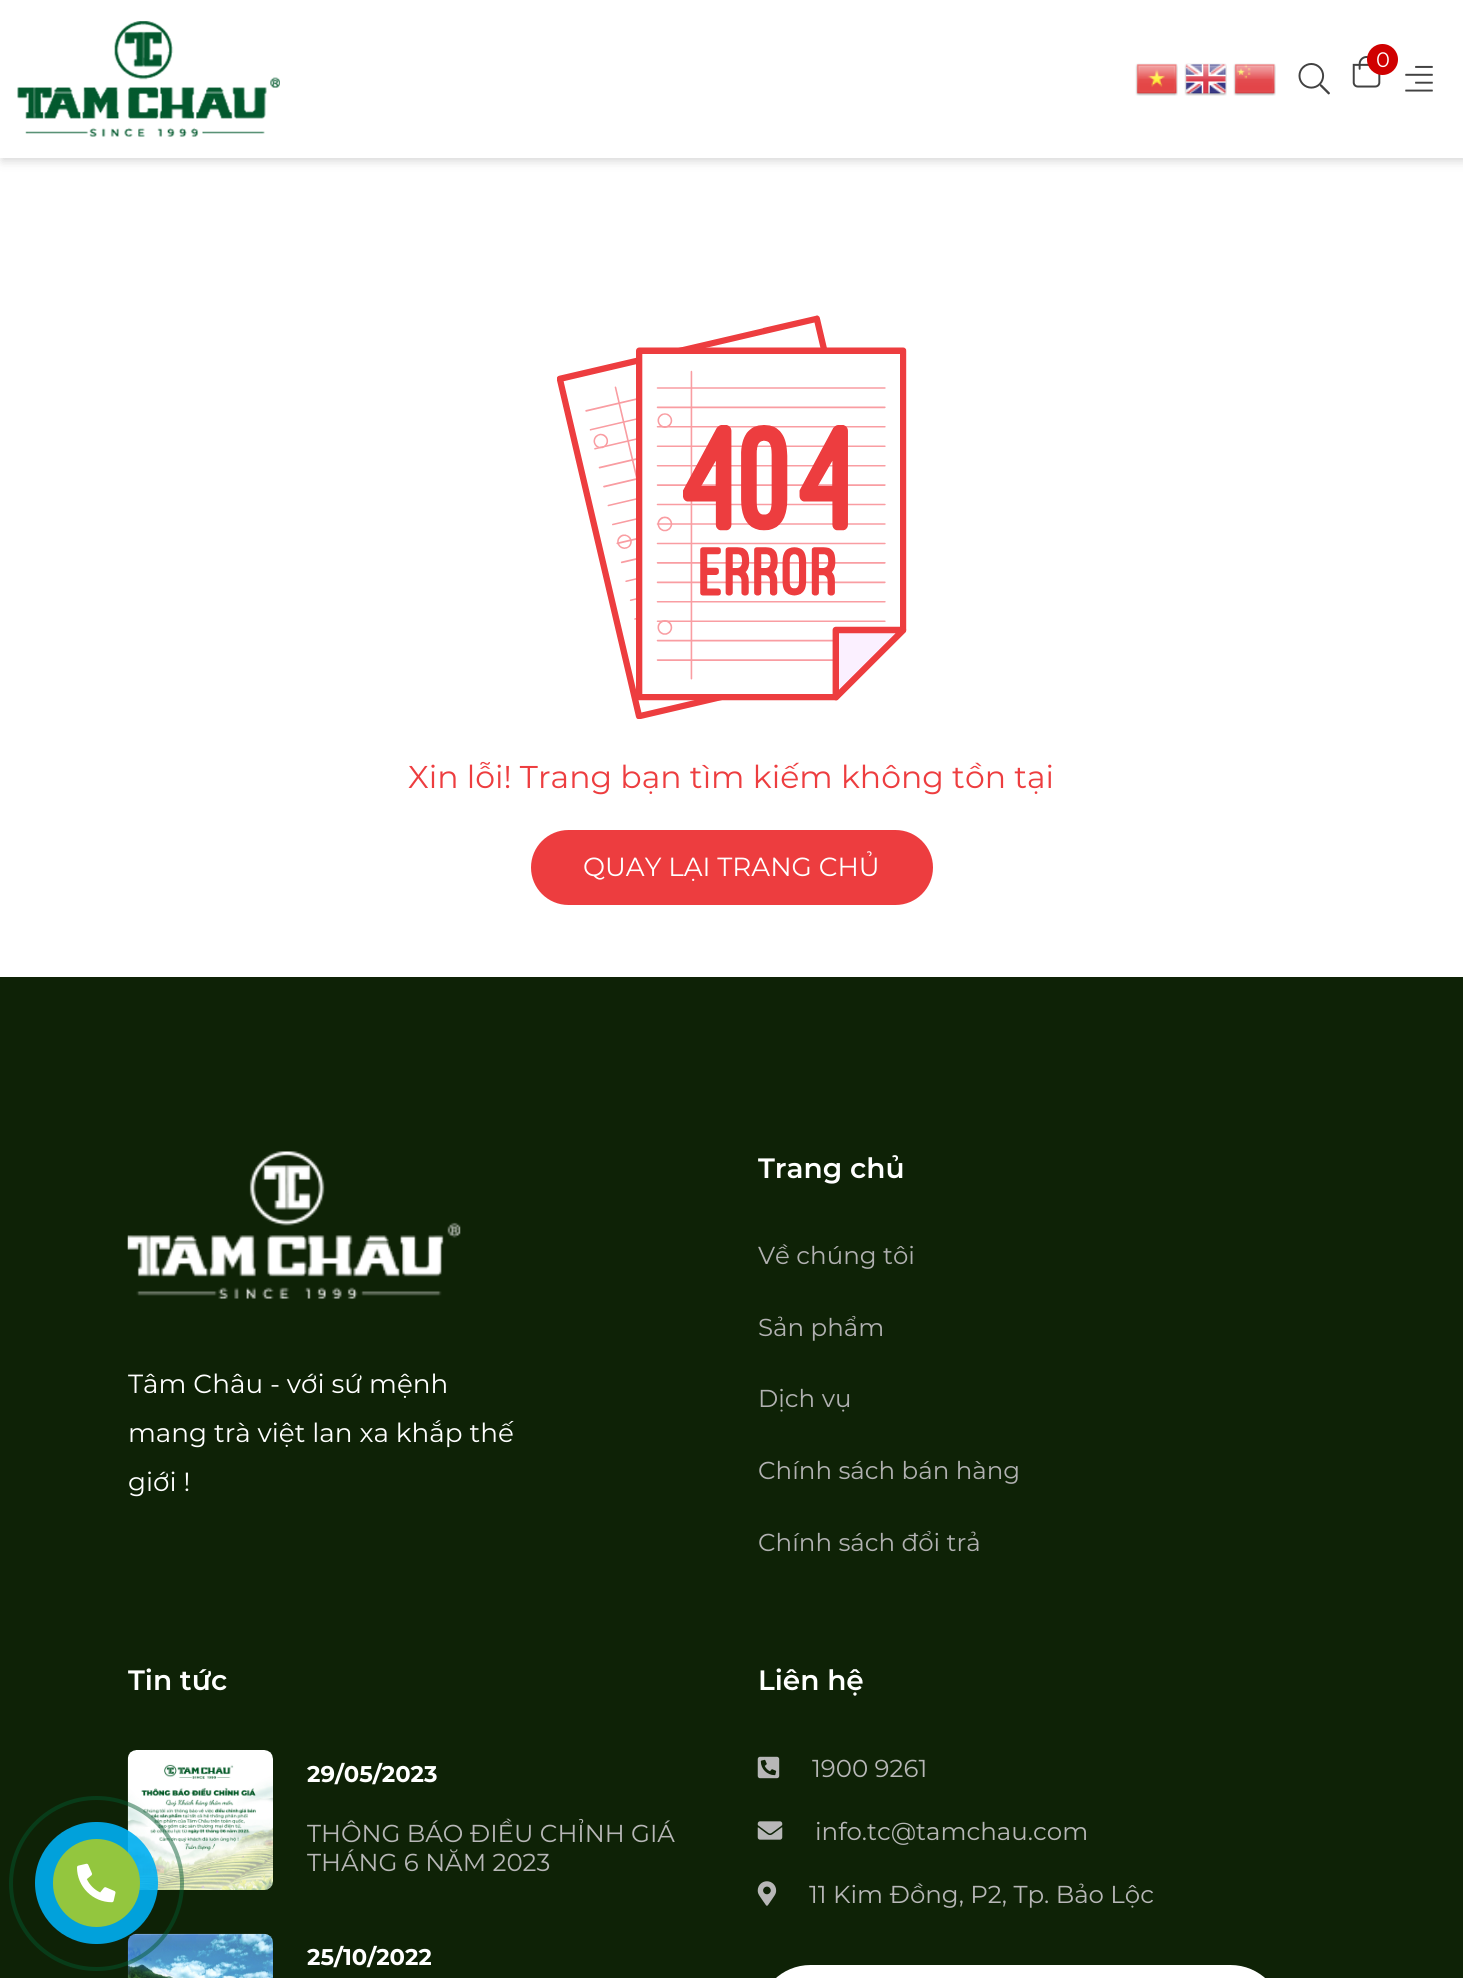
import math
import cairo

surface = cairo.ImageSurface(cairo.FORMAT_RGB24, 1463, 1978)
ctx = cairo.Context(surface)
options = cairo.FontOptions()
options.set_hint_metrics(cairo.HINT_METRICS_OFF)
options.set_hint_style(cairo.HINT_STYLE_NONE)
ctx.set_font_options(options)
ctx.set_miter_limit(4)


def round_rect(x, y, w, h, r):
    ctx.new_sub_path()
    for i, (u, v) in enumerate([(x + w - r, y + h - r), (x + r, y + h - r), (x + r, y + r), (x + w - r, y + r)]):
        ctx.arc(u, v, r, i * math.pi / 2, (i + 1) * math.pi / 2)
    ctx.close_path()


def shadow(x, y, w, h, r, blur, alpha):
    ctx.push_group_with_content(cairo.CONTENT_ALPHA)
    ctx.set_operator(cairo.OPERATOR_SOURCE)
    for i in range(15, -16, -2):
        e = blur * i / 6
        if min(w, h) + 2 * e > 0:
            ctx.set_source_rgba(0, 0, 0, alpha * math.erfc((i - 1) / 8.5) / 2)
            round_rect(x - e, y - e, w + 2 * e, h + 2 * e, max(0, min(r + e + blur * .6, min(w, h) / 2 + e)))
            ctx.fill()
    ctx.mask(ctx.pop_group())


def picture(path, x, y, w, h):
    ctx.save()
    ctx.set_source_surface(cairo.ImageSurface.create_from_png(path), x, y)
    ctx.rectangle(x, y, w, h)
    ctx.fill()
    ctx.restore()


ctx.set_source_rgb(1, 1, 1)
ctx.paint()
ctx.set_source_rgb(0.2, 0.2, 0.2)
shadow(2, 4, 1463, 157, 0, 5, 0.2)
ctx.set_source_rgb(1, 1, 1)
ctx.rectangle(0, 0, 1463, 158)
ctx.fill()
picture("img1.png", 17, 21, 263, 116)
picture("img2.png", 1352, 56, 29, 32)
ctx.set_source_rgb(0.816, 0, 0)
ctx.arc(1382.5, 59.5, 15.5, 0, 2 * math.pi)
ctx.fill()
ctx.select_font_face("Montserrat")
ctx.set_font_size(21)
ctx.set_source_rgb(1, 1, 1)
ctx.move_to(1376, 67)
ctx.show_text("0")
picture("img3.png", 1135, 63, 43, 33)
picture("img4.png", 1184, 63, 43, 33)
picture("img5.png", 1233, 63, 43, 33)
picture("img6.png", 1298, 63, 32, 32)
picture("img7.png", 1405, 65, 28, 27)
picture("img8.png", 557, 315, 350, 404)
ctx.set_font_size(31.5)
ctx.set_source_rgb(0.929, 0.239, 0.247)
ctx.move_to(408, 788)
ctx.show_text("Xin lỗi! Trang bạn tìm kiếm không tồn tại")
round_rect(530, 829, 404, 77, 38.5)
ctx.fill_preserve()
ctx.set_source_rgb(1, 1, 1)
ctx.stroke()
ctx.set_font_size(26.25)
ctx.move_to(583, 876)
ctx.show_text("QUAY LẠI TRANG CHỦ")
ctx.set_source_rgb(0.055, 0.133, 0.027)
ctx.rectangle(0, 977, 1463, 1001)
ctx.fill()
picture("img11.png", 127, 1750, 146, 140)
picture("img12.png", 127, 1933, 146, 45)
ctx.arc(96.5, 1883.5, 85.5, 0, 2 * math.pi)
ctx.set_source_rgba(0.012, 0.349, 0.18, 0.48)
ctx.set_line_width(4)
ctx.stroke()
ctx.set_source_rgba(0, 0.686, 0.949, 0.9)
round_rect(35, 1822, 123, 122, 61)
ctx.fill()
ctx.set_source_rgb(0.576, 0.776, 0.243)
round_rect(53, 1839, 87, 88, 43.5)
ctx.fill()
picture("img9.png", 77, 1863, 39, 40)
picture("img10.png", 127, 1151, 334, 148)
ctx.set_source_rgb(1, 1, 1)
ctx.move_to(128, 1393)
ctx.show_text("Tâm Châu - với sứ mệnh")
ctx.move_to(128, 1442)
ctx.show_text("mang trà việt lan xa khắp thế")
ctx.move_to(128, 1491)
ctx.show_text("giới !")
ctx.select_font_face("Montserrat SemiBold")
ctx.set_font_size(28)
ctx.move_to(758, 1178)
ctx.show_text("Trang chủ")
ctx.select_font_face("Montserrat")
ctx.set_font_size(24.5)
ctx.set_source_rgb(0.694, 0.694, 0.694)
ctx.move_to(758, 1264)
ctx.show_text("Về chúng tôi")
ctx.move_to(758, 1336)
ctx.show_text("Sản phẩm")
ctx.move_to(758, 1407)
ctx.show_text("Dịch vụ")
ctx.move_to(758, 1479)
ctx.show_text("Chính sách bán hàng")
ctx.move_to(758, 1551)
ctx.show_text("Chính sách đổi trả")
ctx.select_font_face("Montserrat SemiBold")
ctx.set_font_size(28)
ctx.set_source_rgb(1, 1, 1)
ctx.move_to(128, 1690)
ctx.show_text("Tin tức")
ctx.select_font_face("Montserrat", cairo.FONT_SLANT_NORMAL, cairo.FONT_WEIGHT_BOLD)
ctx.set_font_size(22.75)
ctx.move_to(307, 1782)
ctx.show_text("29/05/2023")
ctx.select_font_face("Montserrat")
ctx.set_font_size(24.5)
ctx.set_source_rgb(0.718, 0.718, 0.718)
ctx.move_to(307, 1842)
ctx.show_text("THÔNG BÁO ĐIỀU CHỈNH GIÁ")
ctx.move_to(307, 1871)
ctx.show_text("THÁNG 6 NĂM 2023")
ctx.select_font_face("Montserrat", cairo.FONT_SLANT_NORMAL, cairo.FONT_WEIGHT_BOLD)
ctx.set_font_size(22.75)
ctx.set_source_rgb(1, 1, 1)
ctx.move_to(307, 1965)
ctx.show_text("25/10/2022")
ctx.select_font_face("Montserrat SemiBold")
ctx.set_font_size(28)
ctx.move_to(758, 1690)
ctx.show_text("Liên hệ")
picture("img13.png", 757, 1756, 23, 23)
ctx.select_font_face("Montserrat")
ctx.set_font_size(24.5)
ctx.set_source_rgb(0.718, 0.718, 0.718)
ctx.move_to(812, 1777)
ctx.show_text("1900 9261")
picture("img14.png", 757, 1821, 26, 19)
ctx.move_to(815, 1840)
ctx.show_text("info.tc@tamchau.com")
picture("img15.png", 757, 1881, 20, 25)
ctx.move_to(809, 1903)
ctx.show_text("11 Kim Đồng, P2, Tp. Bảo Lộc")
ctx.set_source_rgb(1, 1, 1)
round_rect(758, 1965, 525, 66, 52.5)
ctx.fill()
surface.write_to_png("page.png")
